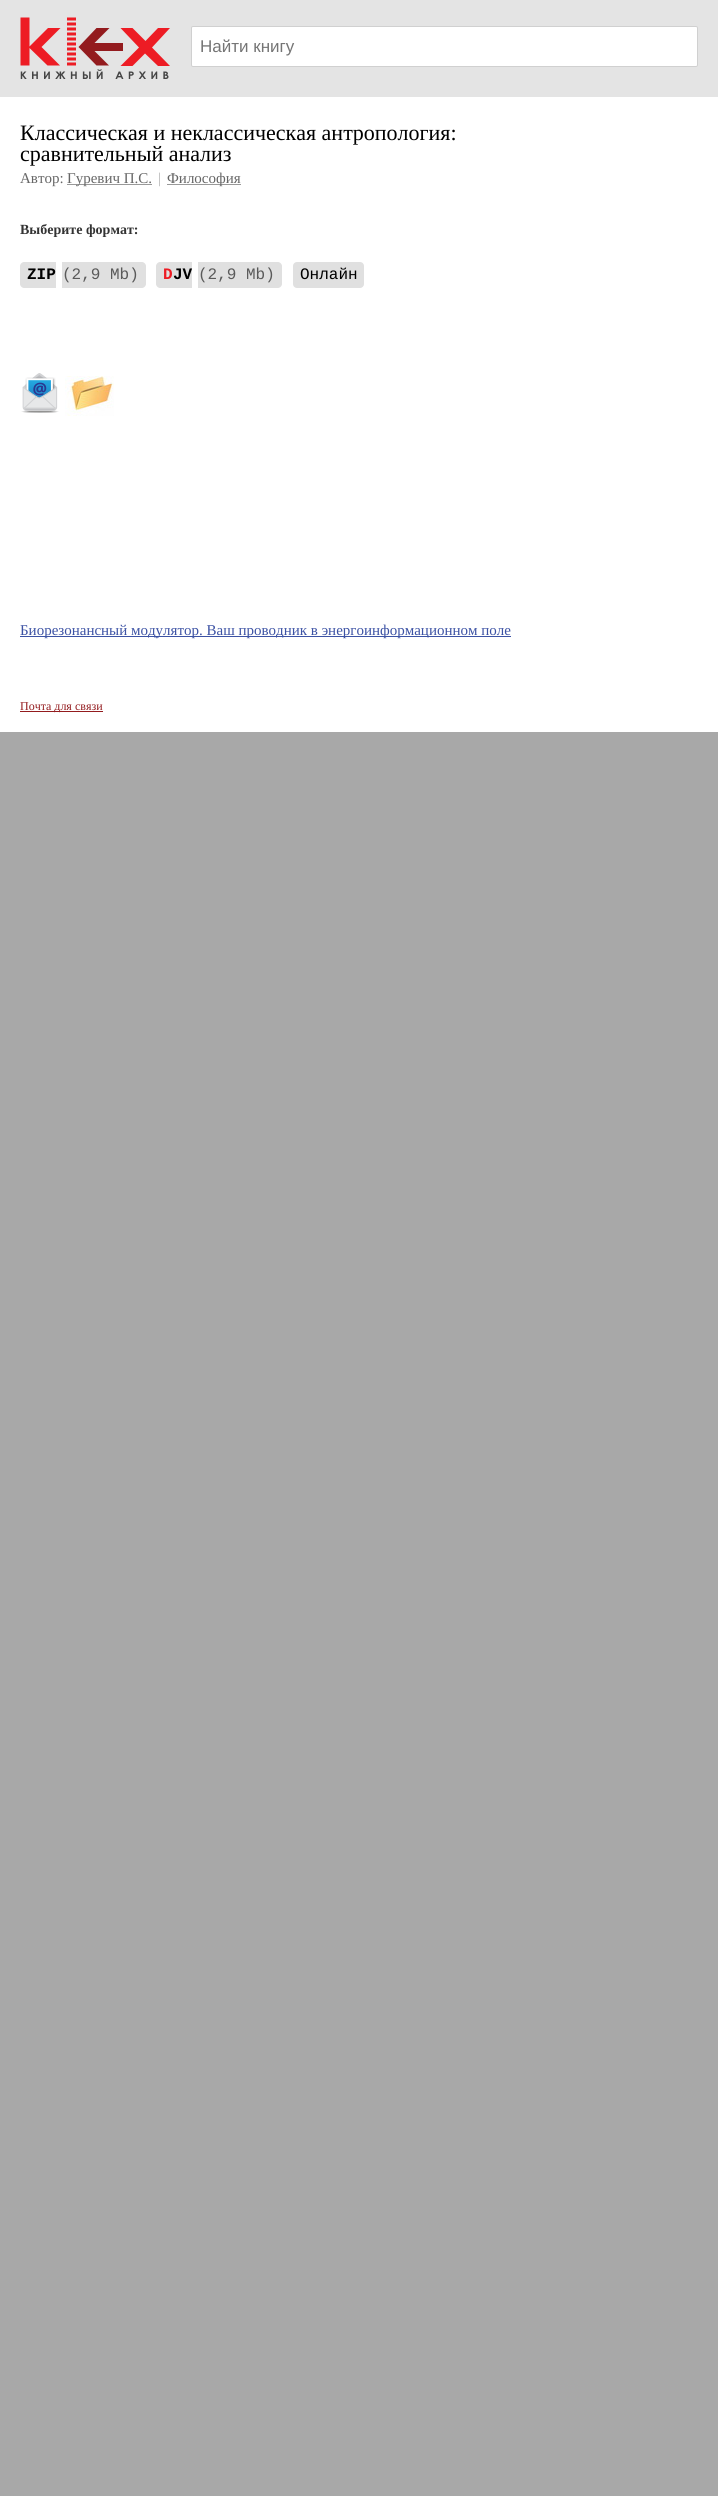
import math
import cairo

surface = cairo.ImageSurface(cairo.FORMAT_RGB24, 718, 2496)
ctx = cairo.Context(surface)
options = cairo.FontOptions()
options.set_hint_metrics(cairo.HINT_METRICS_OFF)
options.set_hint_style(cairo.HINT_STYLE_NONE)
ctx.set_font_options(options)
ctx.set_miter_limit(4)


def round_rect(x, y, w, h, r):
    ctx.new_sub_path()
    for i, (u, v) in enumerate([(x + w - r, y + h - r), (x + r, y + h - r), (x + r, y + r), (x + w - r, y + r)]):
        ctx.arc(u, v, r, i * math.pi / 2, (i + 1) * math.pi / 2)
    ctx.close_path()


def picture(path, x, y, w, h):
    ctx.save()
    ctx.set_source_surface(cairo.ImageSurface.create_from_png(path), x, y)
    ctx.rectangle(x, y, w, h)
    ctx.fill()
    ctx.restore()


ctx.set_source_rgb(0.659, 0.659, 0.659)
ctx.paint()
ctx.set_source_rgb(1, 1, 1)
ctx.rectangle(0, 97, 718, 635)
ctx.fill()
ctx.set_source_rgb(0.894, 0.894, 0.894)
ctx.rectangle(0, 0, 718, 97)
ctx.fill()
picture("img1.png", 20, 17, 150, 62)
ctx.set_source_rgb(1, 1, 1)
round_rect(191.5, 26.5, 506, 40, 1.5)
ctx.fill_preserve()
ctx.set_source_rgb(0.816, 0.816, 0.816)
ctx.set_line_width(1)
ctx.stroke()
ctx.select_font_face("Liberation Sans")
ctx.set_font_size(17)
ctx.set_source_rgb(0.459, 0.459, 0.459)
ctx.move_to(200, 52)
ctx.show_text("Найти книгу")
ctx.select_font_face("Liberation Serif")
ctx.set_font_size(22)
ctx.set_source_rgb(0, 0, 0)
ctx.move_to(20, 140)
ctx.show_text("Классическая и неклассическая антропология:")
ctx.move_to(20, 161)
ctx.show_text("сравнительный анализ")
ctx.set_font_size(15)
ctx.set_source_rgb(0.4, 0.4, 0.4)
ctx.move_to(20, 183)
ctx.show_text("Автор:")
ctx.set_source_rgb(0.6, 0.6, 0.6)
ctx.rectangle(67, 184, 85, 1)
ctx.fill()
ctx.set_source_rgb(0.4, 0.4, 0.4)
ctx.move_to(67, 183)
ctx.show_text("Гуревич П.С.")
ctx.set_source_rgb(0.702, 0.702, 0.702)
ctx.move_to(158, 183)
ctx.show_text("|")
ctx.set_source_rgb(0.6, 0.6, 0.6)
ctx.rectangle(167, 184, 74, 1)
ctx.fill()
ctx.set_source_rgb(0.4, 0.4, 0.4)
ctx.move_to(167, 183)
ctx.show_text("Философия")
ctx.select_font_face("Liberation Serif", cairo.FONT_SLANT_NORMAL, cairo.FONT_WEIGHT_BOLD)
ctx.set_font_size(14)
ctx.set_source_rgb(0.2, 0.2, 0.2)
ctx.move_to(20, 234)
ctx.show_text("Выберите формат:")
ctx.set_source_rgb(0.878, 0.878, 0.878)
ctx.new_path()
ctx.move_to(24, 262)
ctx.line_to(56, 262)
ctx.line_to(56, 288)
ctx.line_to(24, 288)
ctx.curve_to(22, 288, 20, 286, 20, 284)
ctx.line_to(20, 266)
ctx.curve_to(20, 264, 22, 262, 24, 262)
ctx.close_path()
ctx.fill()
ctx.select_font_face("Liberation Mono", cairo.FONT_SLANT_NORMAL, cairo.FONT_WEIGHT_BOLD)
ctx.set_font_size(16)
ctx.set_source_rgb(0, 0, 0)
ctx.move_to(27, 279)
ctx.show_text("ZIP")
ctx.set_source_rgb(0.878, 0.878, 0.878)
ctx.new_path()
ctx.move_to(62, 262)
ctx.line_to(142, 262)
ctx.curve_to(144, 262, 146, 264, 146, 266)
ctx.line_to(146, 284)
ctx.curve_to(146, 286, 144, 288, 142, 288)
ctx.line_to(62, 288)
ctx.close_path()
ctx.fill()
ctx.select_font_face("Liberation Mono")
ctx.set_source_rgb(0.353, 0.353, 0.353)
ctx.move_to(62, 279)
ctx.show_text("(2,9 Mb)")
ctx.set_source_rgb(0.878, 0.878, 0.878)
ctx.new_path()
ctx.move_to(160, 262)
ctx.line_to(173, 262)
ctx.line_to(173, 288)
ctx.line_to(160, 288)
ctx.curve_to(158, 288, 156, 286, 156, 284)
ctx.line_to(156, 266)
ctx.curve_to(156, 264, 158, 262, 160, 262)
ctx.close_path()
ctx.fill()
ctx.select_font_face("Liberation Mono", cairo.FONT_SLANT_NORMAL, cairo.FONT_WEIGHT_BOLD)
ctx.set_source_rgb(0.929, 0.11, 0.141)
ctx.move_to(163, 279)
ctx.show_text("D")
ctx.set_source_rgb(0.878, 0.878, 0.878)
ctx.rectangle(173, 262, 19, 26)
ctx.fill()
ctx.set_source_rgb(0, 0, 0)
ctx.move_to(173, 279)
ctx.show_text("JV")
ctx.set_source_rgb(0.878, 0.878, 0.878)
ctx.new_path()
ctx.move_to(198, 262)
ctx.line_to(278, 262)
ctx.curve_to(280, 262, 282, 264, 282, 266)
ctx.line_to(282, 284)
ctx.curve_to(282, 286, 280, 288, 278, 288)
ctx.line_to(198, 288)
ctx.close_path()
ctx.fill()
ctx.select_font_face("Liberation Mono")
ctx.set_source_rgb(0.353, 0.353, 0.353)
ctx.move_to(198, 279)
ctx.show_text("(2,9 Mb)")
ctx.set_source_rgb(0.878, 0.878, 0.878)
round_rect(293, 262, 71, 26, 4)
ctx.fill()
ctx.set_source_rgb(0, 0, 0)
ctx.move_to(300, 279)
ctx.show_text("Онлайн")
picture("img2.png", 21, 373, 38, 40)
picture("img3.png", 65, 376, 49, 40)
ctx.set_source_rgb(0.235, 0.322, 0.643)
ctx.rectangle(20, 636, 491, 1)
ctx.fill()
ctx.select_font_face("Liberation Serif")
ctx.set_font_size(15)
ctx.move_to(20, 635)
ctx.show_text("Биорезонансный модулятор. Ваш проводник в энергоинформационном поле")
ctx.set_source_rgb(0.576, 0.106, 0.118)
ctx.rectangle(20, 711, 83, 1)
ctx.fill()
ctx.set_font_size(12)
ctx.move_to(20, 710)
ctx.show_text("Почта для связи")
surface.write_to_png("page.png")
